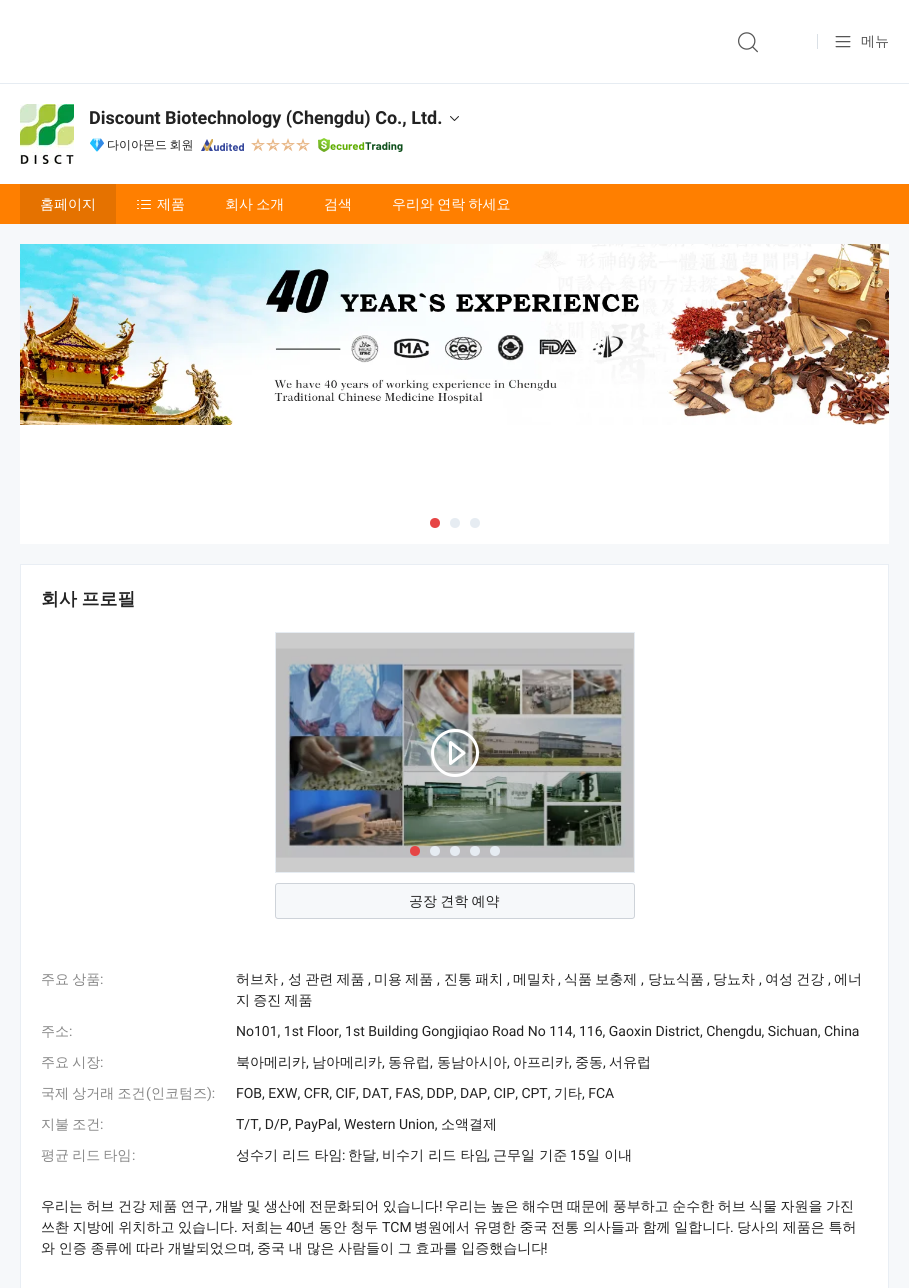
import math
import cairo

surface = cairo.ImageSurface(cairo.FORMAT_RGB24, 909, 1288)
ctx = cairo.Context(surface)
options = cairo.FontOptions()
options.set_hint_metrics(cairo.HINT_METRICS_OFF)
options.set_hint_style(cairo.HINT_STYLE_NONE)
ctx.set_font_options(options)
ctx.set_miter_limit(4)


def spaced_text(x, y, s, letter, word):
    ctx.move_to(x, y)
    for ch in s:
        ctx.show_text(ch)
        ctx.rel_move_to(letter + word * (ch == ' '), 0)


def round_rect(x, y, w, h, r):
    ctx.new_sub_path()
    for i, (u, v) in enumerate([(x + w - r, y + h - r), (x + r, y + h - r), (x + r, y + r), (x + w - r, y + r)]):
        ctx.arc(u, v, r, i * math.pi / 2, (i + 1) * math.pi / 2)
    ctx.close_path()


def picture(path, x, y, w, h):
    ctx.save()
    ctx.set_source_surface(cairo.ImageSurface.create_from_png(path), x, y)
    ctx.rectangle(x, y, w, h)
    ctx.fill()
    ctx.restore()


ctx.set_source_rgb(1, 1, 1)
ctx.paint()
picture("img1.png", 738, 32, 20, 21)
ctx.set_source_rgb(0.855, 0.878, 0.902)
ctx.rectangle(817, 34, 1, 15)
ctx.fill()
picture("img2.png", 835, 36, 16, 12)
ctx.select_font_face("WenQuanYi Zen Hei Medium")
ctx.set_font_size(14)
ctx.set_source_rgb(0.333, 0.333, 0.333)
ctx.move_to(861, 46)
ctx.show_text("메뉴")
ctx.set_source_rgb(0.902, 0.925, 0.949)
ctx.rectangle(0, 83, 909, 1)
ctx.fill()
picture("img3.png", 20, 104, 54, 60)
ctx.select_font_face("Roboto", cairo.FONT_SLANT_NORMAL, cairo.FONT_WEIGHT_BOLD)
ctx.set_font_size(18)
ctx.set_source_rgb(0.133, 0.133, 0.133)
ctx.move_to(89, 124)
ctx.show_text("Discount Biotechnology (Chengdu) Co., Ltd.")
picture("img4.png", 450, 116, 9, 5)
picture("img5.png", 90, 138, 14, 14)
ctx.select_font_face("WenQuanYi Zen Hei Medium")
ctx.set_font_size(12)
spaced_text(107, 149, "다이아몬드 회원", 0, -1)
picture("img6.png", 201, 139, 43, 12)
picture("img7.png", 251, 138, 14, 14)
picture("img7.png", 266, 138, 14, 14)
picture("img7.png", 281, 138, 14, 14)
picture("img7.png", 296, 138, 14, 14)
picture("img8.png", 318, 138, 85, 14)
ctx.set_source_rgb(1, 0.498, 0)
ctx.rectangle(0, 184, 909, 40)
ctx.fill()
ctx.set_source_rgb(0.898, 0.447, 0)
ctx.rectangle(20, 184, 96, 40)
ctx.fill()
ctx.set_font_size(14)
ctx.set_source_rgb(1, 1, 1)
ctx.move_to(40, 209)
ctx.show_text("홈페이지")
picture("img9.png", 137, 200, 14, 9)
ctx.move_to(157, 209)
ctx.show_text("제품")
spaced_text(225, 209, "회사 소개", 0, -1)
ctx.move_to(324, 209)
ctx.show_text("검색")
spaced_text(392, 209, "우리와 연락 하세요", 0, -1)
ctx.set_source_rgb(0.961, 0.969, 0.98)
ctx.rectangle(0, 224, 909, 1064)
ctx.fill()
ctx.set_source_rgb(1, 1, 1)
ctx.rectangle(20, 425, 869, 119)
ctx.fill()
picture("img10.png", 20, 244, 869, 181)
ctx.set_source_rgb(0.902, 0.271, 0.271)
ctx.arc(435, 523, 5, 0, 2 * math.pi)
ctx.fill()
ctx.set_source_rgb(0.902, 0.925, 0.949)
ctx.arc(455, 523, 5, 0, 2 * math.pi)
ctx.fill()
ctx.arc(475, 523, 5, 0, 2 * math.pi)
ctx.fill()
ctx.set_source_rgb(1, 1, 1)
ctx.rectangle(21, 565, 867, 723)
ctx.fill()
ctx.set_source_rgb(0.8, 0.8, 0.8)
ctx.rectangle(276, 633, 358, 239)
ctx.fill()
ctx.rectangle(20.5, 564.5, 868, 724)
ctx.set_source_rgb(0.914, 0.933, 0.957)
ctx.set_line_width(1)
ctx.stroke()
ctx.select_font_face("WenQuanYi Zen Hei", cairo.FONT_SLANT_NORMAL, cairo.FONT_WEIGHT_BOLD)
ctx.set_font_size(18)
ctx.set_source_rgb(0.133, 0.133, 0.133)
spaced_text(41, 605, "회사 프로필", 0, -1)
ctx.rectangle(275.5, 632.5, 359, 240)
ctx.set_source_rgb(0.902, 0.925, 0.949)
ctx.stroke()
picture("img11.png", 276, 648, 357, 210)
picture("img12.png", 431, 729, 48, 48)
ctx.set_source_rgb(0.902, 0.271, 0.271)
ctx.arc(415, 851, 5, 0, 2 * math.pi)
ctx.fill()
ctx.set_source_rgb(0.902, 0.925, 0.949)
ctx.arc(435, 851, 5, 0, 2 * math.pi)
ctx.fill()
ctx.arc(455, 851, 5, 0, 2 * math.pi)
ctx.fill()
ctx.arc(475, 851, 5, 0, 2 * math.pi)
ctx.fill()
ctx.arc(495, 851, 5, 0, 2 * math.pi)
ctx.fill()
ctx.set_source_rgb(0.961, 0.969, 0.98)
round_rect(275.5, 883.5, 359, 35, 2.5)
ctx.fill_preserve()
ctx.set_source_rgb(0.808, 0.827, 0.851)
ctx.stroke()
ctx.select_font_face("WenQuanYi Zen Hei Medium")
ctx.set_font_size(14)
ctx.set_source_rgb(0.133, 0.133, 0.133)
spaced_text(409, 906, "공장 견학 예약", 0, -1)
ctx.set_source_rgb(0.533, 0.533, 0.533)
spaced_text(41, 984, "주요 상품", 0, -1)
ctx.select_font_face("Roboto")
ctx.move_to(100, 984)
ctx.show_text(":")
ctx.select_font_face("WenQuanYi Zen Hei Medium")
ctx.set_source_rgb(0.133, 0.133, 0.133)
ctx.move_to(236, 984)
ctx.show_text("허브차")
ctx.select_font_face("Roboto")
ctx.move_to(281, 984)
ctx.show_text(",")
ctx.select_font_face("WenQuanYi Zen Hei Medium")
spaced_text(288, 984, "성 관련 제품", 0, -1)
ctx.select_font_face("Roboto")
ctx.move_to(368, 984)
ctx.show_text(",")
ctx.select_font_face("WenQuanYi Zen Hei Medium")
spaced_text(374, 984, "미용 제품", 0, -1)
ctx.select_font_face("Roboto")
ctx.move_to(437, 984)
ctx.show_text(",")
ctx.select_font_face("WenQuanYi Zen Hei Medium")
spaced_text(444, 984, "진통 패치", 0, -1)
ctx.select_font_face("Roboto")
ctx.move_to(507, 984)
ctx.show_text(",")
ctx.select_font_face("WenQuanYi Zen Hei Medium")
ctx.move_to(513, 984)
ctx.show_text("메밀차")
ctx.select_font_face("Roboto")
ctx.move_to(558, 984)
ctx.show_text(",")
ctx.select_font_face("WenQuanYi Zen Hei Medium")
spaced_text(564, 984, "식품 보충제", 0, -1)
ctx.select_font_face("Roboto")
ctx.move_to(641, 984)
ctx.show_text(",")
ctx.select_font_face("WenQuanYi Zen Hei Medium")
ctx.move_to(648, 984)
ctx.show_text("당뇨식품")
ctx.select_font_face("Roboto")
ctx.move_to(707, 984)
ctx.show_text(",")
ctx.select_font_face("WenQuanYi Zen Hei Medium")
ctx.move_to(713, 984)
ctx.show_text("당뇨차")
ctx.select_font_face("Roboto")
ctx.move_to(759, 984)
ctx.show_text(",")
ctx.select_font_face("WenQuanYi Zen Hei Medium")
spaced_text(765, 984, "여성 건강", 0, -1)
ctx.select_font_face("Roboto")
ctx.move_to(828, 984)
ctx.show_text(",")
ctx.select_font_face("WenQuanYi Zen Hei Medium")
ctx.move_to(834, 984)
ctx.show_text("에너")
spaced_text(236, 1005, "지 증진 제품", 0, -1)
ctx.set_source_rgb(0.533, 0.533, 0.533)
ctx.move_to(41, 1036)
ctx.show_text("주소")
ctx.select_font_face("Roboto")
ctx.move_to(69, 1036)
ctx.show_text(":")
ctx.set_source_rgb(0.133, 0.133, 0.133)
ctx.move_to(236, 1036)
ctx.show_text("No101, 1st Floor, 1st Building Gongjiqiao Road No 114, 116, Gaoxin District, Chengdu, Sichuan, China")
ctx.select_font_face("WenQuanYi Zen Hei Medium")
ctx.set_source_rgb(0.533, 0.533, 0.533)
spaced_text(41, 1067, "주요 시장", 0, -1)
ctx.select_font_face("Roboto")
ctx.move_to(100, 1067)
ctx.show_text(":")
ctx.select_font_face("WenQuanYi Zen Hei Medium")
ctx.set_source_rgb(0.133, 0.133, 0.133)
ctx.move_to(236, 1067)
ctx.show_text("북아메리카")
ctx.select_font_face("Roboto")
ctx.move_to(306, 1067)
ctx.show_text(",")
ctx.select_font_face("WenQuanYi Zen Hei Medium")
ctx.move_to(312, 1067)
ctx.show_text("남아메리카")
ctx.select_font_face("Roboto")
ctx.move_to(382, 1067)
ctx.show_text(",")
ctx.select_font_face("WenQuanYi Zen Hei Medium")
ctx.move_to(388, 1067)
ctx.show_text("동유럽")
ctx.select_font_face("Roboto")
ctx.move_to(430, 1067)
ctx.show_text(",")
ctx.select_font_face("WenQuanYi Zen Hei Medium")
ctx.move_to(437, 1067)
ctx.show_text("동남아시아")
ctx.select_font_face("Roboto")
ctx.move_to(507, 1067)
ctx.show_text(",")
ctx.select_font_face("WenQuanYi Zen Hei Medium")
ctx.move_to(513, 1067)
ctx.show_text("아프리카")
ctx.select_font_face("Roboto")
ctx.move_to(569, 1067)
ctx.show_text(",")
ctx.select_font_face("WenQuanYi Zen Hei Medium")
ctx.move_to(575, 1067)
ctx.show_text("중동")
ctx.select_font_face("Roboto")
ctx.move_to(603, 1067)
ctx.show_text(",")
ctx.select_font_face("WenQuanYi Zen Hei Medium")
ctx.move_to(609, 1067)
ctx.show_text("서유럽")
ctx.set_source_rgb(0.533, 0.533, 0.533)
spaced_text(41, 1098, "국제 상거래 조건", 0, -1)
ctx.select_font_face("Roboto")
ctx.move_to(146, 1098)
ctx.show_text("(")
ctx.select_font_face("WenQuanYi Zen Hei Medium")
ctx.move_to(151, 1098)
ctx.show_text("인코텀즈")
ctx.select_font_face("Roboto")
ctx.move_to(207, 1098)
ctx.show_text("):")
ctx.set_source_rgb(0.133, 0.133, 0.133)
ctx.move_to(236, 1098)
ctx.show_text("FOB, EXW, CFR, CIF, DAT, FAS, DDP, DAP, CIP, CPT,")
ctx.select_font_face("WenQuanYi Zen Hei Medium")
ctx.move_to(554, 1098)
ctx.show_text("기타")
ctx.select_font_face("Roboto")
ctx.move_to(582, 1098)
ctx.show_text(", FCA")
ctx.select_font_face("WenQuanYi Zen Hei Medium")
ctx.set_source_rgb(0.533, 0.533, 0.533)
spaced_text(41, 1129, "지불 조건", 0, -1)
ctx.select_font_face("Roboto")
ctx.move_to(100, 1129)
ctx.show_text(":")
ctx.set_source_rgb(0.133, 0.133, 0.133)
ctx.move_to(236, 1129)
ctx.show_text("T/T, D/P, PayPal, Western Union,")
ctx.select_font_face("WenQuanYi Zen Hei Medium")
ctx.move_to(441, 1129)
ctx.show_text("소액결제")
ctx.set_source_rgb(0.533, 0.533, 0.533)
spaced_text(41, 1160, "평균 리드 타임", 0, -1)
ctx.select_font_face("Roboto")
ctx.move_to(132, 1160)
ctx.show_text(":")
ctx.select_font_face("WenQuanYi Zen Hei Medium")
ctx.set_source_rgb(0.133, 0.133, 0.133)
ctx.move_to(236, 1160)
ctx.show_text("성수기 리드 타임")
ctx.select_font_face("Roboto")
ctx.move_to(342, 1160)
ctx.show_text(":")
ctx.select_font_face("WenQuanYi Zen Hei Medium")
ctx.move_to(348, 1160)
ctx.show_text("한달")
ctx.select_font_face("Roboto")
ctx.move_to(376, 1160)
ctx.show_text(",")
ctx.select_font_face("WenQuanYi Zen Hei Medium")
ctx.move_to(382, 1160)
ctx.show_text("비수기 리드 타임")
ctx.select_font_face("Roboto")
ctx.move_to(487, 1160)
ctx.show_text(",")
ctx.select_font_face("WenQuanYi Zen Hei Medium")
ctx.move_to(493, 1160)
ctx.show_text("근무일 기준")
ctx.select_font_face("Roboto")
ctx.move_to(570, 1160)
ctx.show_text("15")
ctx.select_font_face("WenQuanYi Zen Hei Medium")
ctx.move_to(586, 1160)
ctx.show_text("일 이내")
spaced_text(41, 1211, "우리는 허브 건강 제품 연구", 0, -0.75)
ctx.select_font_face("Roboto")
ctx.move_to(209, 1211)
ctx.show_text(",")
ctx.select_font_face("WenQuanYi Zen Hei Medium")
spaced_text(215, 1211, "개발 및 생산에 전문화되어 있습니다", 0, -0.75)
ctx.select_font_face("Roboto")
ctx.move_to(439, 1211)
ctx.show_text("!")
ctx.select_font_face("WenQuanYi Zen Hei Medium")
spaced_text(445, 1211, "우리는 높은 해수면 때문에 풍부하고 순수한 허브 식물 자원을 가진", 0, -0.75)
spaced_text(41, 1232, "쓰촨 지방에 위치하고 있습니다", 0, -0.5)
ctx.select_font_face("Roboto")
ctx.move_to(234, 1232)
ctx.show_text(".")
ctx.select_font_face("WenQuanYi Zen Hei Medium")
ctx.move_to(241, 1232)
ctx.show_text("저희는")
ctx.select_font_face("Roboto")
ctx.move_to(286, 1232)
ctx.show_text("40")
ctx.select_font_face("WenQuanYi Zen Hei Medium")
spaced_text(301, 1232, "년 동안 청두", 0, -0.5)
ctx.select_font_face("Roboto")
ctx.move_to(382, 1232)
ctx.show_text("TCM")
ctx.select_font_face("WenQuanYi Zen Hei Medium")
spaced_text(414, 1232, "병원에서 유명한 중국 전통 의사들과 함께 일합니다", 0, -0.5)
ctx.select_font_face("Roboto")
ctx.move_to(730, 1232)
ctx.show_text(".")
ctx.select_font_face("WenQuanYi Zen Hei Medium")
spaced_text(737, 1232, "당사의 제품은 특허", 0, -0.5)
spaced_text(41, 1253, "와 인증 종류에 따라 개발되었으며", 0, -0.5)
ctx.select_font_face("Roboto")
ctx.move_to(251, 1253)
ctx.show_text(",")
ctx.select_font_face("WenQuanYi Zen Hei Medium")
spaced_text(257, 1253, "중국 내 많은 사람들이 그 효과를 입증했습니다", 0, -0.5)
ctx.select_font_face("Roboto")
ctx.move_to(544, 1253)
ctx.show_text("!")
surface.write_to_png("page.png")
